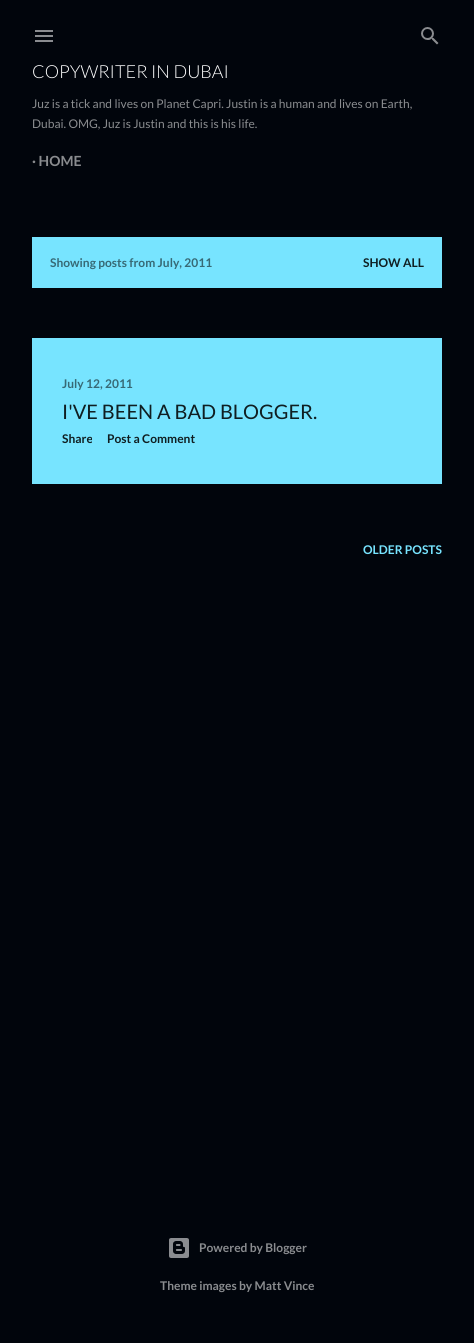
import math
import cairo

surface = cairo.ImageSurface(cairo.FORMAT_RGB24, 474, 1343)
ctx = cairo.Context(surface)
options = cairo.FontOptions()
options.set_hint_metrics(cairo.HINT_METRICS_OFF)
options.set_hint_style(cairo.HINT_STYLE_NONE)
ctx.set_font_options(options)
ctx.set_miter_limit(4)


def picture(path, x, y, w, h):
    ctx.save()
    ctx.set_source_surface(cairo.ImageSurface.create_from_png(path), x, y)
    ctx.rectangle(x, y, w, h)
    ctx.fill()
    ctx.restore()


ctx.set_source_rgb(0.004, 0.02, 0.047)
ctx.paint()
picture("img1.png", 35, 30, 18, 12)
picture("img2.png", 421, 27, 18, 18)
ctx.select_font_face("Lato Light")
ctx.set_font_size(18)
ctx.set_source_rgb(1, 1, 1)
ctx.move_to(32, 78)
ctx.show_text("COPYWRITER IN DUBAI")
ctx.select_font_face("Lato")
ctx.set_font_size(12)
ctx.set_source_rgb(0.541, 0.549, 0.561)
ctx.move_to(32, 108)
ctx.show_text("Juz is a tick and lives on Planet Capri. Justin is a human and lives on Earth,")
ctx.move_to(32, 128)
ctx.show_text("Dubai. OMG, Juz is Justin and this is his life.")
ctx.select_font_face("Lato", cairo.FONT_SLANT_NORMAL, cairo.FONT_WEIGHT_BOLD)
ctx.set_font_size(14)
ctx.move_to(32, 166)
ctx.show_text("· HOME")
ctx.set_source_rgb(0.467, 0.894, 1)
ctx.rectangle(32, 237, 410, 51)
ctx.fill()
ctx.set_font_size(12)
ctx.set_source_rgb(0.216, 0.412, 0.459)
ctx.move_to(50, 267)
ctx.show_text("Showing posts from July, 2011")
ctx.set_source_rgb(0.059, 0.118, 0.129)
ctx.move_to(363, 267)
ctx.show_text("SHOW ALL")
ctx.set_source_rgb(0.467, 0.894, 1)
ctx.rectangle(32, 338, 410, 146)
ctx.fill()
ctx.set_source_rgb(0.216, 0.412, 0.459)
ctx.move_to(62, 388)
ctx.show_text("July 12, 2011")
ctx.select_font_face("Lato")
ctx.set_font_size(20)
ctx.set_source_rgb(0.059, 0.118, 0.129)
ctx.move_to(62, 419)
ctx.show_text("I'VE BEEN A BAD BLOGGER.")
ctx.select_font_face("Lato", cairo.FONT_SLANT_NORMAL, cairo.FONT_WEIGHT_BOLD)
ctx.set_font_size(12)
ctx.move_to(62, 443)
ctx.show_text("Share")
ctx.move_to(107, 443)
ctx.show_text("Post a Comment")
ctx.set_source_rgb(0.467, 0.894, 1)
ctx.move_to(363, 554)
ctx.show_text("OLDER POSTS")
picture("img3.png", 169, 1238, 20, 20)
ctx.set_source_rgb(0.541, 0.549, 0.561)
ctx.move_to(199, 1252)
ctx.show_text("Powered by Blogger")
ctx.move_to(160, 1290)
ctx.show_text("Theme images by Matt Vince")
surface.write_to_png("page.png")
